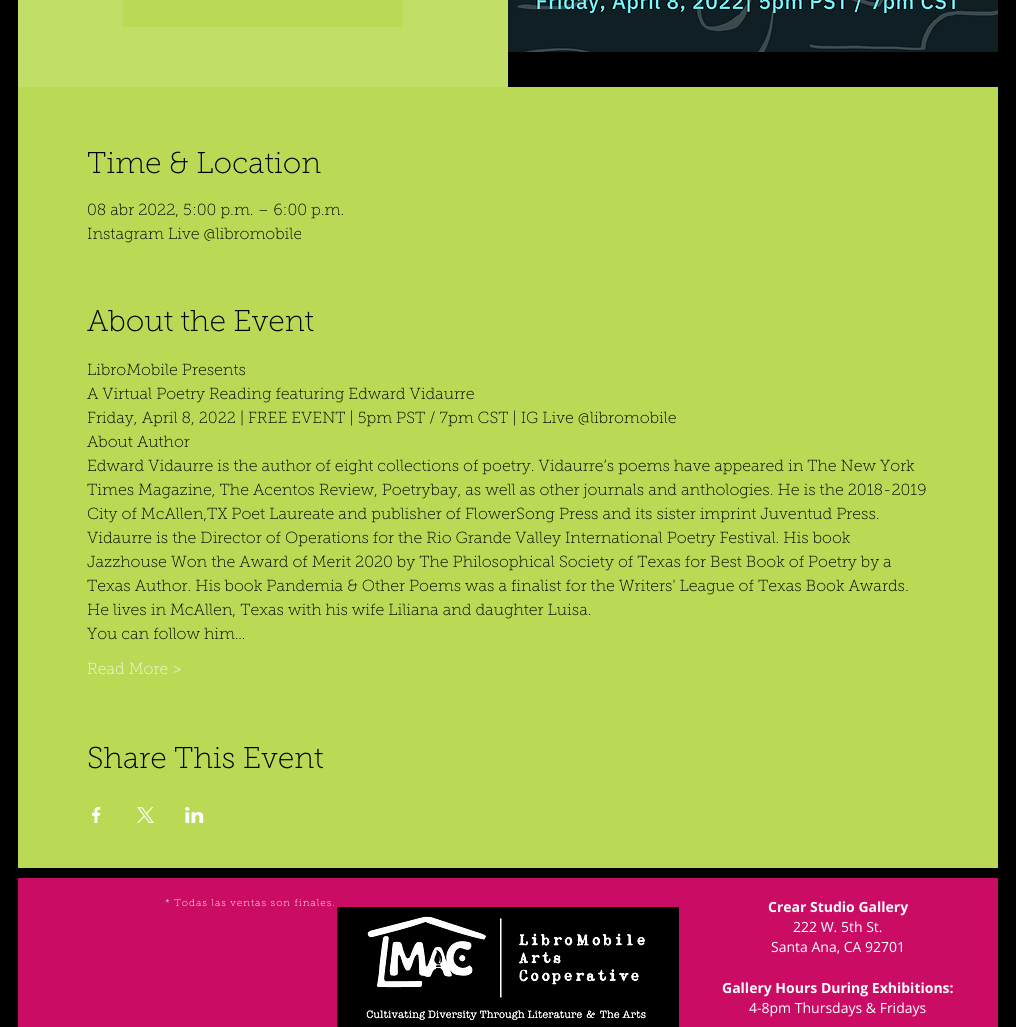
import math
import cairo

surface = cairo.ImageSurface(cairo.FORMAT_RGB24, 1016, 1027)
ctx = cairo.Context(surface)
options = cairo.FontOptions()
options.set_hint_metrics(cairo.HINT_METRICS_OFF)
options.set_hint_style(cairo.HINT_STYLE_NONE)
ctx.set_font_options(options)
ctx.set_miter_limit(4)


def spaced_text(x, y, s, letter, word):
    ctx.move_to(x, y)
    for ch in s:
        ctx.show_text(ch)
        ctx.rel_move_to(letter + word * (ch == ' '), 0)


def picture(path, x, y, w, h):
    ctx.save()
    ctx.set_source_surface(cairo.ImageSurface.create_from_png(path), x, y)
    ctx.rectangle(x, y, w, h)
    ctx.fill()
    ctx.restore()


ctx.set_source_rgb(0, 0, 0)
ctx.paint()
ctx.set_source_rgb(0.729, 0.855, 0.333)
ctx.rectangle(18, 87, 980, 781)
ctx.fill()
ctx.set_source_rgb(0.757, 0.871, 0.4)
ctx.rectangle(18, 0, 490, 87)
ctx.fill()
ctx.set_source_rgb(0.729, 0.855, 0.333)
ctx.rectangle(123, 0, 280, 27)
ctx.fill()
picture("img1.png", 508, 0, 490, 52)
ctx.select_font_face("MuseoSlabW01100 Thin")
ctx.set_font_size(30)
ctx.set_source_rgb(0, 0, 0)
ctx.move_to(87, 173)
ctx.show_text("Time & Location")
ctx.set_font_size(16)
ctx.move_to(87, 215)
ctx.show_text("08 abr 2022, 5:00 p.m. – 6:00 p.m.")
ctx.move_to(87, 239)
ctx.show_text("Instagram Live @libromobile")
ctx.set_font_size(30)
ctx.move_to(87, 331)
ctx.show_text("About the Event")
ctx.set_font_size(16)
ctx.move_to(87, 375)
ctx.show_text("LibroMobile Presents")
ctx.move_to(87, 399)
ctx.show_text("A Virtual Poetry Reading featuring Edward Vidaurre")
ctx.move_to(87, 423)
ctx.show_text("Friday, April 8, 2022 | FREE EVENT | 5pm PST / 7pm CST | IG Live @libromobile")
ctx.move_to(87, 447)
ctx.show_text("About Author")
ctx.move_to(87, 471)
ctx.show_text("Edward Vidaurre is the author of eight collections of poetry. Vidaurre’s poems have appeared in The New York")
ctx.move_to(87, 495)
ctx.show_text("Times Magazine, The Acentos Review, Poetrybay, as well as other journals and anthologies. He is the 2018-2019")
ctx.move_to(87, 519)
ctx.show_text("City of McAllen,TX Poet Laureate and publisher of FlowerSong Press and its sister imprint Juventud Press.")
ctx.move_to(87, 543)
ctx.show_text("Vidaurre is the Director of Operations for the Rio Grande Valley International Poetry Festival. His book")
ctx.move_to(87, 567)
ctx.show_text("Jazzhouse Won the Award of Merit 2020 by The Philosophical Society of Texas for Best Book of Poetry by a")
ctx.move_to(87, 591)
ctx.show_text("Texas Author. His book Pandemia & Other Poems was a finalist for the Writers' League of Texas Book Awards.")
ctx.move_to(87, 615)
ctx.show_text("He lives in McAllen, Texas with his wife Liliana and daughter Luisa.")
ctx.move_to(87, 639)
ctx.show_text("You can follow him…")
ctx.set_source_rgb(0.945, 0.973, 0.867)
ctx.move_to(87, 674)
ctx.show_text("Read More >")
ctx.set_font_size(30)
ctx.set_source_rgb(0, 0, 0)
ctx.move_to(87, 768)
ctx.show_text("Share This Event")
picture("img2.png", 92, 807, 9, 16)
picture("img3.png", 137, 807, 17, 16)
picture("img4.png", 185, 807, 19, 16)
ctx.set_source_rgb(0.792, 0.047, 0.392)
ctx.rectangle(18, 878, 980, 149)
ctx.fill()
ctx.set_font_size(10)
ctx.set_source_rgb(1, 1, 1)
spaced_text(165, 906, "* Todas las ventas son finales.", 1, 0)
picture("img5.png", 337, 907, 342, 120)
ctx.select_font_face("Open Sans", cairo.FONT_SLANT_NORMAL, cairo.FONT_WEIGHT_BOLD)
ctx.set_font_size(14)
ctx.move_to(768, 912)
ctx.show_text("Crear Studio Gallery")
ctx.select_font_face("Open Sans")
ctx.move_to(793, 932)
ctx.show_text("222 W. 5th St.")
ctx.move_to(771, 952)
ctx.show_text("Santa Ana, CA 92701")
ctx.select_font_face("Open Sans", cairo.FONT_SLANT_NORMAL, cairo.FONT_WEIGHT_BOLD)
ctx.move_to(722, 993)
ctx.show_text("Gallery Hours During Exhibitions:")
ctx.select_font_face("Open Sans")
ctx.move_to(749, 1013)
ctx.show_text("4-8pm Thursdays & Fridays")
surface.write_to_png("page.png")
